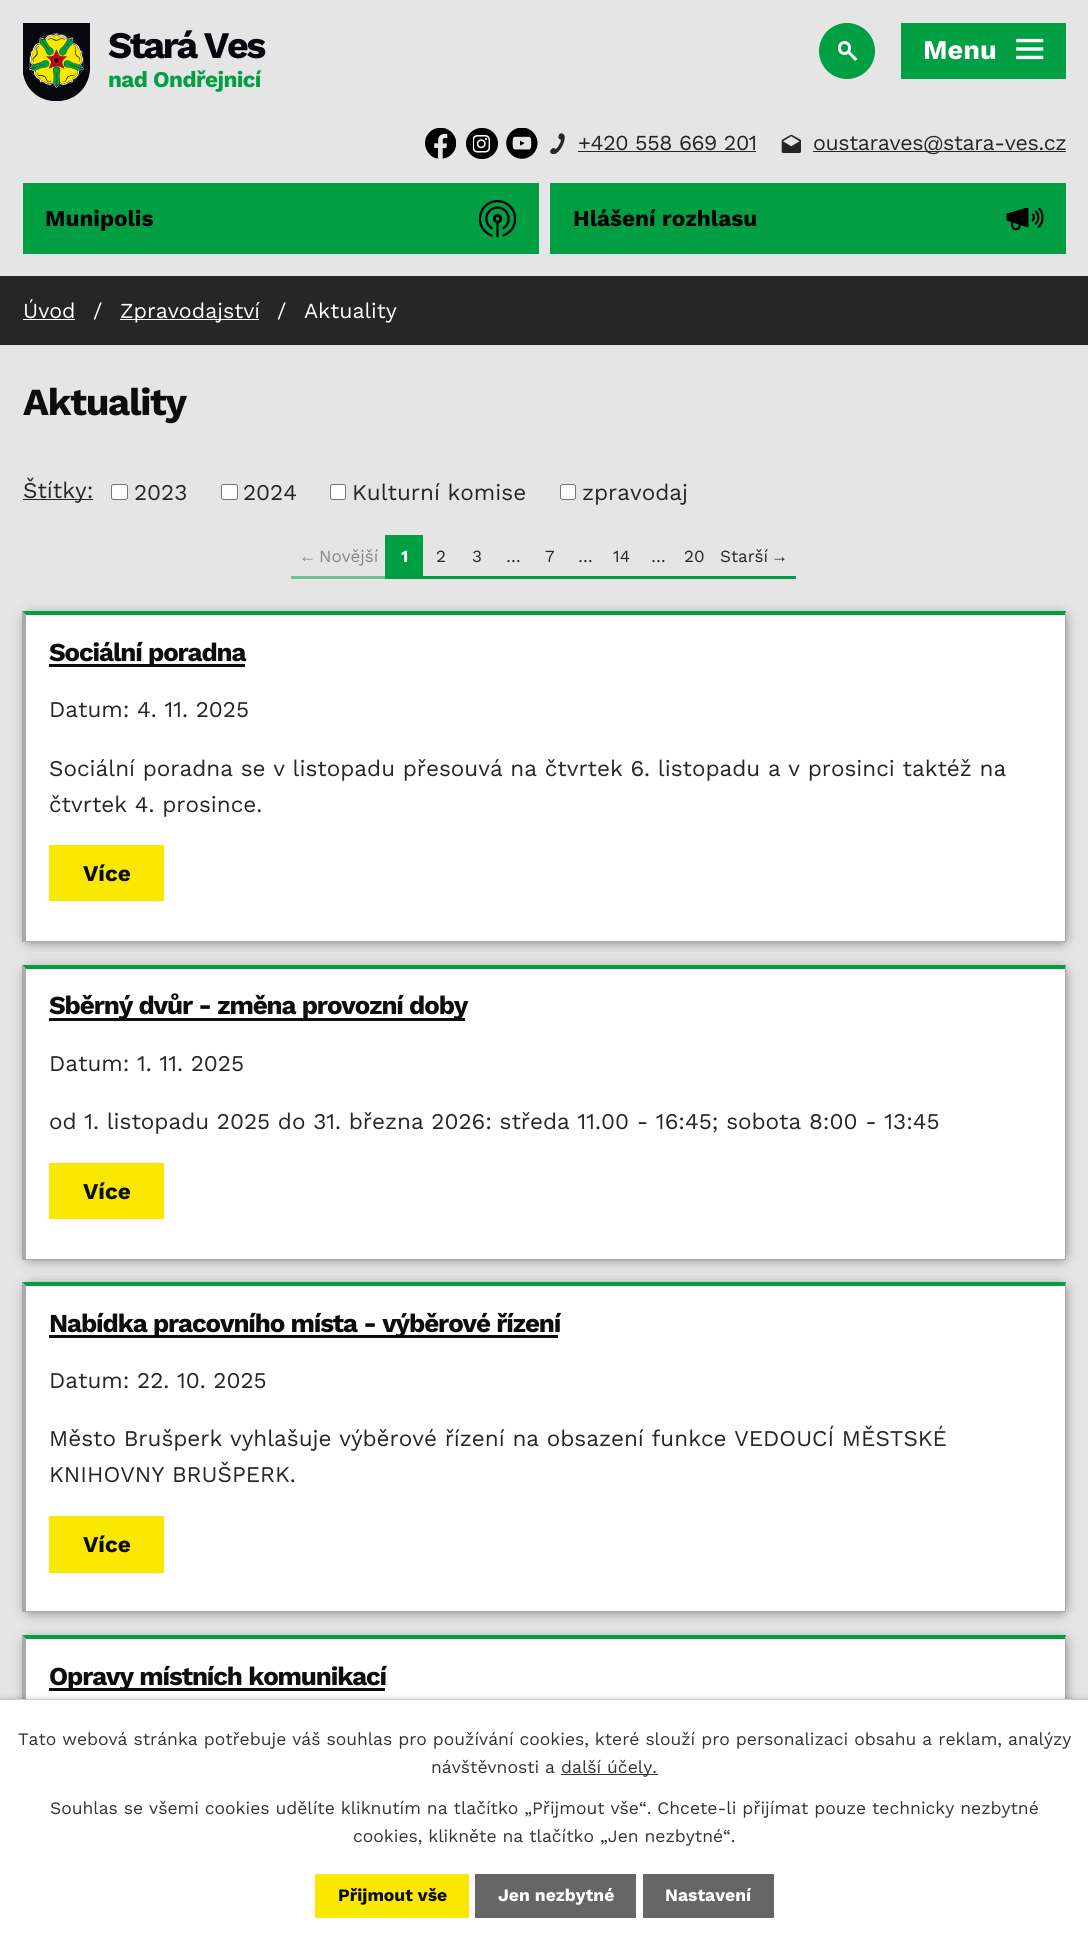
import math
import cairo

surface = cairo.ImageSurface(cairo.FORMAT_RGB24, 1088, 1941)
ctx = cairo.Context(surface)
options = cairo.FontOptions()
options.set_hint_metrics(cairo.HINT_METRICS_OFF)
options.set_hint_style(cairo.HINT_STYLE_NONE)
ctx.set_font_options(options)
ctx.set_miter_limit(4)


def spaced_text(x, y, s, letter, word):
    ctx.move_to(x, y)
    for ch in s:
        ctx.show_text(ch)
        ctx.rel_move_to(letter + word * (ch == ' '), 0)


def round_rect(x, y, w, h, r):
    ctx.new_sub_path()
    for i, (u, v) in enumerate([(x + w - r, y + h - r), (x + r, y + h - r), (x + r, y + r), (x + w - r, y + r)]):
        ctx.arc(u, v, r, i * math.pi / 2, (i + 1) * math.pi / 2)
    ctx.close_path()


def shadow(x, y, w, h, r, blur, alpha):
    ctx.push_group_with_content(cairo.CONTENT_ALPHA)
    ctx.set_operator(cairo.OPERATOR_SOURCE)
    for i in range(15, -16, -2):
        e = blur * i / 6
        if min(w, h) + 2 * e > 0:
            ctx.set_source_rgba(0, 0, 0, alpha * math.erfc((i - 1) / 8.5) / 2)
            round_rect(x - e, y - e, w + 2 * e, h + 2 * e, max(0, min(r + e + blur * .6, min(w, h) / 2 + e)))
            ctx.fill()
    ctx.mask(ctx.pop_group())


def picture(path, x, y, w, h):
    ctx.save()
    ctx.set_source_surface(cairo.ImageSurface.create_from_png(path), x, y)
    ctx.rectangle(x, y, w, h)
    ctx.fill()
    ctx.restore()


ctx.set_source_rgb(0.898, 0.898, 0.898)
ctx.paint()
picture("img1.png", 23, 23, 67, 78)
ctx.select_font_face("Work Sans", cairo.FONT_SLANT_NORMAL, cairo.FONT_WEIGHT_BOLD)
ctx.set_font_size(37.5)
ctx.set_source_rgb(0.024, 0.027, 0.051)
spaced_text(108, 58, "Stará Ves", -2.5, 0)
ctx.set_font_size(22.5)
ctx.set_source_rgb(0, 0.624, 0.263)
spaced_text(108, 87, "nad Ondřejnicí", -0.6, 0)
ctx.new_path()
ctx.arc(847, 51, 27.5, 0, 2 * math.pi)
ctx.fill_preserve()
ctx.set_line_width(1)
ctx.stroke()
round_rect(839.5, 42.5, 10, 11, 5)
ctx.set_source_rgb(1, 1, 1)
ctx.set_line_width(3)
ctx.stroke()
ctx.new_path()
ctx.move_to(850, 51.5)
ctx.line_to(857.5, 59)
ctx.line_to(855, 61)
ctx.line_to(848, 53.5)
ctx.close_path()
ctx.fill()
picture("img2.png", 425, 128, 31, 31)
ctx.set_source_rgb(0, 0, 0)
round_rect(466, 128, 32, 31, 15.5)
ctx.fill()
picture("img3.png", 473, 135, 17, 18)
picture("img4.png", 506, 128, 32, 31)
picture("img5.png", 550, 133, 15, 21)
ctx.select_font_face("Work Sans")
ctx.set_font_size(21.4)
ctx.set_source_rgb(0.149, 0.149, 0.149)
spaced_text(578, 150, "+420 558 669 201", -0.4, 0)
ctx.rectangle(578, 151, 178, 1)
ctx.fill()
picture("img6.png", 781, 134, 20, 19)
ctx.rectangle(813, 151, 253, 1)
ctx.fill()
spaced_text(813, 150, "oustaraves@stara-ves.cz", -0.4, 0)
ctx.set_source_rgb(0, 0.624, 0.263)
ctx.rectangle(23, 183, 516, 71)
ctx.fill()
ctx.select_font_face("Work Sans", cairo.FONT_SLANT_NORMAL, cairo.FONT_WEIGHT_BOLD)
ctx.set_font_size(22.5)
ctx.set_source_rgb(0, 0, 0)
ctx.move_to(45, 226)
ctx.show_text("Munipolis")
picture("img7.png", 479, 200, 37, 38)
ctx.set_source_rgb(0, 0.624, 0.263)
ctx.rectangle(550, 183, 516, 71)
ctx.fill()
ctx.set_source_rgb(0, 0, 0)
ctx.move_to(573, 226)
ctx.show_text("Hlášení rozhlasu")
picture("img8.png", 1006, 208, 38, 22)
ctx.set_source_rgb(0, 0.624, 0.263)
ctx.rectangle(901, 23, 165, 56)
ctx.fill()
ctx.set_font_size(27)
ctx.set_source_rgb(1, 1, 1)
ctx.move_to(923, 59)
ctx.show_text("Menu")
picture("img9.png", 1016, 38, 28, 22)
ctx.set_source_rgb(0.149, 0.149, 0.149)
ctx.rectangle(0, 276, 1088, 69)
ctx.fill()
ctx.select_font_face("Work Sans")
ctx.set_font_size(21.4)
ctx.set_source_rgb(1, 1, 1)
ctx.move_to(23, 318)
ctx.show_text("Úvod")
ctx.rectangle(23, 319, 52, 1)
ctx.fill()
ctx.move_to(93, 318)
ctx.show_text("/")
ctx.rectangle(120, 319, 139, 1)
ctx.fill()
ctx.move_to(120, 318)
ctx.show_text("Zpravodajství")
ctx.move_to(277, 318)
ctx.show_text("/")
ctx.move_to(304, 318)
ctx.show_text("Aktuality")
ctx.select_font_face("Work Sans", cairo.FONT_SLANT_NORMAL, cairo.FONT_WEIGHT_BOLD)
ctx.set_font_size(38.25)
ctx.set_source_rgb(0.051, 0.051, 0.051)
spaced_text(23, 415, "Aktuality", -1.25, 0)
ctx.set_source_rgb(0.149, 0.149, 0.149)
ctx.rectangle(23, 499, 70, 1)
ctx.fill()
ctx.select_font_face("Work Sans")
ctx.set_font_size(22.5)
ctx.move_to(23, 498)
ctx.show_text("Štítky:")
ctx.set_source_rgb(1, 1, 1)
round_rect(111.5, 484.5, 16, 15, 2)
ctx.fill_preserve()
ctx.set_source_rgb(0.463, 0.463, 0.463)
ctx.set_line_width(1)
ctx.stroke()
ctx.set_source_rgb(0.149, 0.149, 0.149)
ctx.move_to(134, 500)
ctx.show_text("2023")
ctx.set_source_rgb(1, 1, 1)
round_rect(221.5, 484.5, 16, 15, 2)
ctx.fill_preserve()
ctx.set_source_rgb(0.463, 0.463, 0.463)
ctx.stroke()
ctx.set_source_rgb(0.149, 0.149, 0.149)
ctx.move_to(243, 500)
ctx.show_text("2024")
ctx.set_source_rgb(1, 1, 1)
round_rect(330.5, 484.5, 15, 15, 2)
ctx.fill_preserve()
ctx.set_source_rgb(0.463, 0.463, 0.463)
ctx.stroke()
ctx.set_source_rgb(0.149, 0.149, 0.149)
ctx.move_to(352, 500)
ctx.show_text("Kulturní komise")
ctx.set_source_rgb(1, 1, 1)
round_rect(560.5, 484.5, 15, 15, 2)
ctx.fill_preserve()
ctx.set_source_rgb(0.463, 0.463, 0.463)
ctx.stroke()
ctx.set_source_rgb(0.149, 0.149, 0.149)
ctx.move_to(582, 500)
ctx.show_text("zpravodaj")
ctx.set_source_rgb(0.451, 0.761, 0.58)
ctx.rectangle(291, 576, 95, 3)
ctx.fill()
ctx.select_font_face("Liberation Sans")
ctx.set_font_size(17)
ctx.set_source_rgb(0.525, 0.525, 0.525)
ctx.move_to(299, 562)
ctx.show_text("←")
ctx.select_font_face("Work Sans")
ctx.move_to(319, 562)
ctx.show_text("Novější")
ctx.set_source_rgb(0, 0.624, 0.263)
ctx.rectangle(385, 535, 38, 44)
ctx.fill()
ctx.select_font_face("Work Sans", cairo.FONT_SLANT_NORMAL, cairo.FONT_WEIGHT_BOLD)
ctx.set_source_rgb(1, 1, 1)
ctx.move_to(401, 562)
ctx.show_text("1")
ctx.set_source_rgb(0, 0.624, 0.263)
ctx.rectangle(421, 576, 375, 3)
ctx.fill()
ctx.select_font_face("Work Sans")
ctx.set_source_rgb(0.149, 0.149, 0.149)
ctx.move_to(436, 562)
ctx.show_text("2")
ctx.move_to(472, 562)
ctx.show_text("3")
ctx.move_to(506, 562)
ctx.show_text("…")
ctx.move_to(545, 562)
ctx.show_text("7")
ctx.move_to(578, 562)
ctx.show_text("…")
ctx.move_to(613, 562)
ctx.show_text("14")
ctx.move_to(651, 562)
ctx.show_text("…")
ctx.move_to(684, 562)
ctx.show_text("20")
ctx.move_to(720, 562)
ctx.show_text("Starší")
ctx.select_font_face("Liberation Sans")
ctx.move_to(771, 562)
ctx.show_text("→")
ctx.set_source_rgb(0.149, 0.149, 0.149)
shadow(30, 619, 1031, 319, 0, 7.5, 1)
ctx.set_source_rgb(1, 1, 1)
ctx.rectangle(26, 615, 1039, 326)
ctx.fill()
ctx.set_source_rgb(0, 0.624, 0.263)
ctx.new_path()
ctx.move_to(22, 611)
ctx.line_to(1066, 611)
ctx.line_to(1065, 615)
ctx.line_to(26, 615)
ctx.close_path()
ctx.fill()
ctx.set_source_rgb(0.667, 0.667, 0.667)
ctx.new_path()
ctx.move_to(1066, 611)
ctx.line_to(1066, 942)
ctx.line_to(1065, 941)
ctx.line_to(1065, 615)
ctx.close_path()
ctx.fill()
ctx.rectangle(23, 941, 1043, 1)
ctx.fill()
ctx.new_path()
ctx.move_to(22, 942)
ctx.line_to(22, 611)
ctx.line_to(26, 615)
ctx.line_to(26, 941)
ctx.close_path()
ctx.fill()
ctx.set_source_rgb(0.051, 0.051, 0.051)
ctx.rectangle(49, 664, 196, 3)
ctx.fill()
ctx.select_font_face("Work Sans", cairo.FONT_SLANT_NORMAL, cairo.FONT_WEIGHT_BOLD)
ctx.set_font_size(25.9)
spaced_text(49, 661, "Sociální poradna", -1.1, 0)
ctx.select_font_face("Work Sans")
ctx.set_font_size(22.5)
ctx.set_source_rgb(0.149, 0.149, 0.149)
ctx.move_to(49, 717)
ctx.show_text("Datum: 4. 11. 2025")
ctx.move_to(49, 776)
ctx.show_text("Sociální poradna se v listopadu přesouvá na čtvrtek 6. listopadu a v prosinci taktéž na")
ctx.move_to(49, 812)
ctx.show_text("čtvrtek 4. prosince.")
ctx.set_source_rgb(0.976, 0.91, 0.004)
ctx.rectangle(49, 845, 115, 56)
ctx.fill()
ctx.select_font_face("Work Sans", cairo.FONT_SLANT_NORMAL, cairo.FONT_WEIGHT_BOLD)
ctx.set_source_rgb(0.051, 0.051, 0.051)
ctx.move_to(83, 881)
ctx.show_text("Více")
ctx.set_source_rgb(0.149, 0.149, 0.149)
shadow(30, 973, 1031, 282, 0, 7.5, 1)
ctx.set_source_rgb(1, 1, 1)
ctx.rectangle(26, 969, 1039, 290)
ctx.fill()
ctx.set_source_rgb(0, 0.624, 0.263)
ctx.new_path()
ctx.move_to(22, 965)
ctx.line_to(1066, 965)
ctx.line_to(1065, 969)
ctx.line_to(26, 969)
ctx.close_path()
ctx.fill()
ctx.set_source_rgb(0.667, 0.667, 0.667)
ctx.new_path()
ctx.move_to(1066, 965)
ctx.line_to(1066, 1260)
ctx.line_to(1065, 1259)
ctx.line_to(1065, 969)
ctx.close_path()
ctx.fill()
ctx.rectangle(23, 1259, 1043, 1)
ctx.fill()
ctx.new_path()
ctx.move_to(22, 1260)
ctx.line_to(22, 965)
ctx.line_to(26, 969)
ctx.line_to(26, 1259)
ctx.close_path()
ctx.fill()
ctx.set_source_rgb(0.051, 0.051, 0.051)
ctx.rectangle(49, 1018, 416, 3)
ctx.fill()
ctx.set_font_size(25.9)
spaced_text(49, 1014, "Sběrný dvůr - změna provozní doby", -1.1, 0)
ctx.select_font_face("Work Sans")
ctx.set_font_size(22.5)
ctx.set_source_rgb(0.149, 0.149, 0.149)
ctx.move_to(49, 1071)
ctx.show_text("Datum: 1. 11. 2025")
ctx.move_to(49, 1129)
ctx.show_text("od 1. listopadu 2025 do 31. března 2026: středa 11.00 - 16:45; sobota 8:00 - 13:45")
ctx.set_source_rgb(0.976, 0.91, 0.004)
ctx.rectangle(49, 1163, 115, 56)
ctx.fill()
ctx.select_font_face("Work Sans", cairo.FONT_SLANT_NORMAL, cairo.FONT_WEIGHT_BOLD)
ctx.set_source_rgb(0.051, 0.051, 0.051)
ctx.move_to(83, 1199)
ctx.show_text("Více")
ctx.set_source_rgb(0.149, 0.149, 0.149)
shadow(30, 1290, 1031, 318, 0, 7.5, 1)
ctx.set_source_rgb(1, 1, 1)
ctx.rectangle(26, 1286, 1039, 325)
ctx.fill()
ctx.set_source_rgb(0, 0.624, 0.263)
ctx.new_path()
ctx.move_to(22, 1282)
ctx.line_to(1066, 1282)
ctx.line_to(1065, 1286)
ctx.line_to(26, 1286)
ctx.close_path()
ctx.fill()
ctx.set_source_rgb(0.667, 0.667, 0.667)
ctx.new_path()
ctx.move_to(1066, 1282)
ctx.line_to(1066, 1612)
ctx.line_to(1065, 1611)
ctx.line_to(1065, 1286)
ctx.close_path()
ctx.fill()
ctx.rectangle(23, 1611, 1043, 1)
ctx.fill()
ctx.new_path()
ctx.move_to(22, 1612)
ctx.line_to(22, 1282)
ctx.line_to(26, 1286)
ctx.line_to(26, 1611)
ctx.close_path()
ctx.fill()
ctx.set_source_rgb(0.051, 0.051, 0.051)
ctx.rectangle(49, 1335, 509, 3)
ctx.fill()
ctx.set_font_size(25.9)
spaced_text(49, 1332, "Nabídka pracovního místa - výběrové řízení", -1.1, 0)
ctx.select_font_face("Work Sans")
ctx.set_font_size(22.5)
ctx.set_source_rgb(0.149, 0.149, 0.149)
ctx.move_to(49, 1388)
ctx.show_text("Datum: 22. 10. 2025")
ctx.move_to(49, 1446)
ctx.show_text("Město Brušperk vyhlašuje výběrové řízení na obsazení funkce VEDOUCÍ MĚSTSKÉ")
ctx.move_to(49, 1482)
ctx.show_text("KNIHOVNY BRUŠPERK.")
ctx.set_source_rgb(0.976, 0.91, 0.004)
ctx.rectangle(49, 1516, 115, 57)
ctx.fill()
ctx.select_font_face("Work Sans", cairo.FONT_SLANT_NORMAL, cairo.FONT_WEIGHT_BOLD)
ctx.set_source_rgb(0.051, 0.051, 0.051)
ctx.move_to(83, 1552)
ctx.show_text("Více")
ctx.set_source_rgb(0.149, 0.149, 0.149)
shadow(30, 1643, 1031, 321, 0, 7.5, 1)
ctx.set_source_rgb(1, 1, 1)
ctx.rectangle(26, 1639, 1039, 60)
ctx.fill()
ctx.set_source_rgb(0, 0.624, 0.263)
ctx.new_path()
ctx.move_to(22, 1635)
ctx.line_to(1066, 1635)
ctx.line_to(1065, 1639)
ctx.line_to(26, 1639)
ctx.close_path()
ctx.fill()
ctx.set_source_rgb(0.667, 0.667, 0.667)
ctx.new_path()
ctx.move_to(1066, 1635)
ctx.line_to(1066, 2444)
ctx.line_to(1065, 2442)
ctx.line_to(1065, 1639)
ctx.close_path()
ctx.fill()
ctx.new_path()
ctx.move_to(22, 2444)
ctx.line_to(22, 1635)
ctx.line_to(26, 1639)
ctx.line_to(26, 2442)
ctx.close_path()
ctx.fill()
ctx.set_source_rgb(0.051, 0.051, 0.051)
ctx.rectangle(49, 1688, 336, 3)
ctx.fill()
ctx.set_font_size(25.9)
spaced_text(49, 1685, "Opravy místních komunikací", -1.1, 0)
ctx.set_source_rgb(0, 0, 0)
shadow(0, 1699, 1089, 242, 0, 3, 0.2)
ctx.set_source_rgb(1, 1, 1)
ctx.rectangle(0, 1700, 1088, 241)
ctx.fill()
ctx.set_source_rgb(0.8, 0.8, 0.8)
ctx.rectangle(0, 1699, 1088, 1)
ctx.fill()
ctx.select_font_face("Work Sans")
ctx.set_font_size(17.5)
ctx.set_source_rgb(0.2, 0.2, 0.2)
ctx.move_to(18, 1745)
ctx.show_text("Tato webová stránka potřebuje váš souhlas pro používání cookies, které slouží pro personalizaci obsahu a reklam, analýzy")
ctx.move_to(431, 1773)
ctx.show_text("návštěvnosti a")
ctx.rectangle(561, 1774, 97, 1)
ctx.fill()
ctx.move_to(561, 1773)
ctx.show_text("další účely.")
ctx.move_to(50, 1814)
ctx.show_text("Souhlas se všemi cookies udělíte kliknutím na tlačítko „Přijmout vše“. Chcete-li přijímat pouze technicky nezbytné")
ctx.move_to(353, 1842)
ctx.show_text("cookies, klikněte na tlačítko „Jen nezbytné“.")
ctx.set_source_rgb(0.976, 0.91, 0.004)
ctx.rectangle(315, 1874, 154, 44)
ctx.fill()
ctx.select_font_face("Work Sans", cairo.FONT_SLANT_NORMAL, cairo.FONT_WEIGHT_BOLD)
ctx.set_source_rgb(0.051, 0.051, 0.051)
ctx.move_to(338, 1901)
ctx.show_text("Přijmout vše")
ctx.set_source_rgb(0.4, 0.4, 0.4)
ctx.rectangle(475, 1874, 161, 44)
ctx.fill()
ctx.set_source_rgb(1, 1, 1)
ctx.move_to(498, 1901)
ctx.show_text("Jen nezbytné")
ctx.set_source_rgb(0.4, 0.4, 0.4)
ctx.rectangle(643, 1874, 131, 44)
ctx.fill()
ctx.set_source_rgb(1, 1, 1)
ctx.move_to(665, 1901)
ctx.show_text("Nastavení")
surface.write_to_png("page.png")
